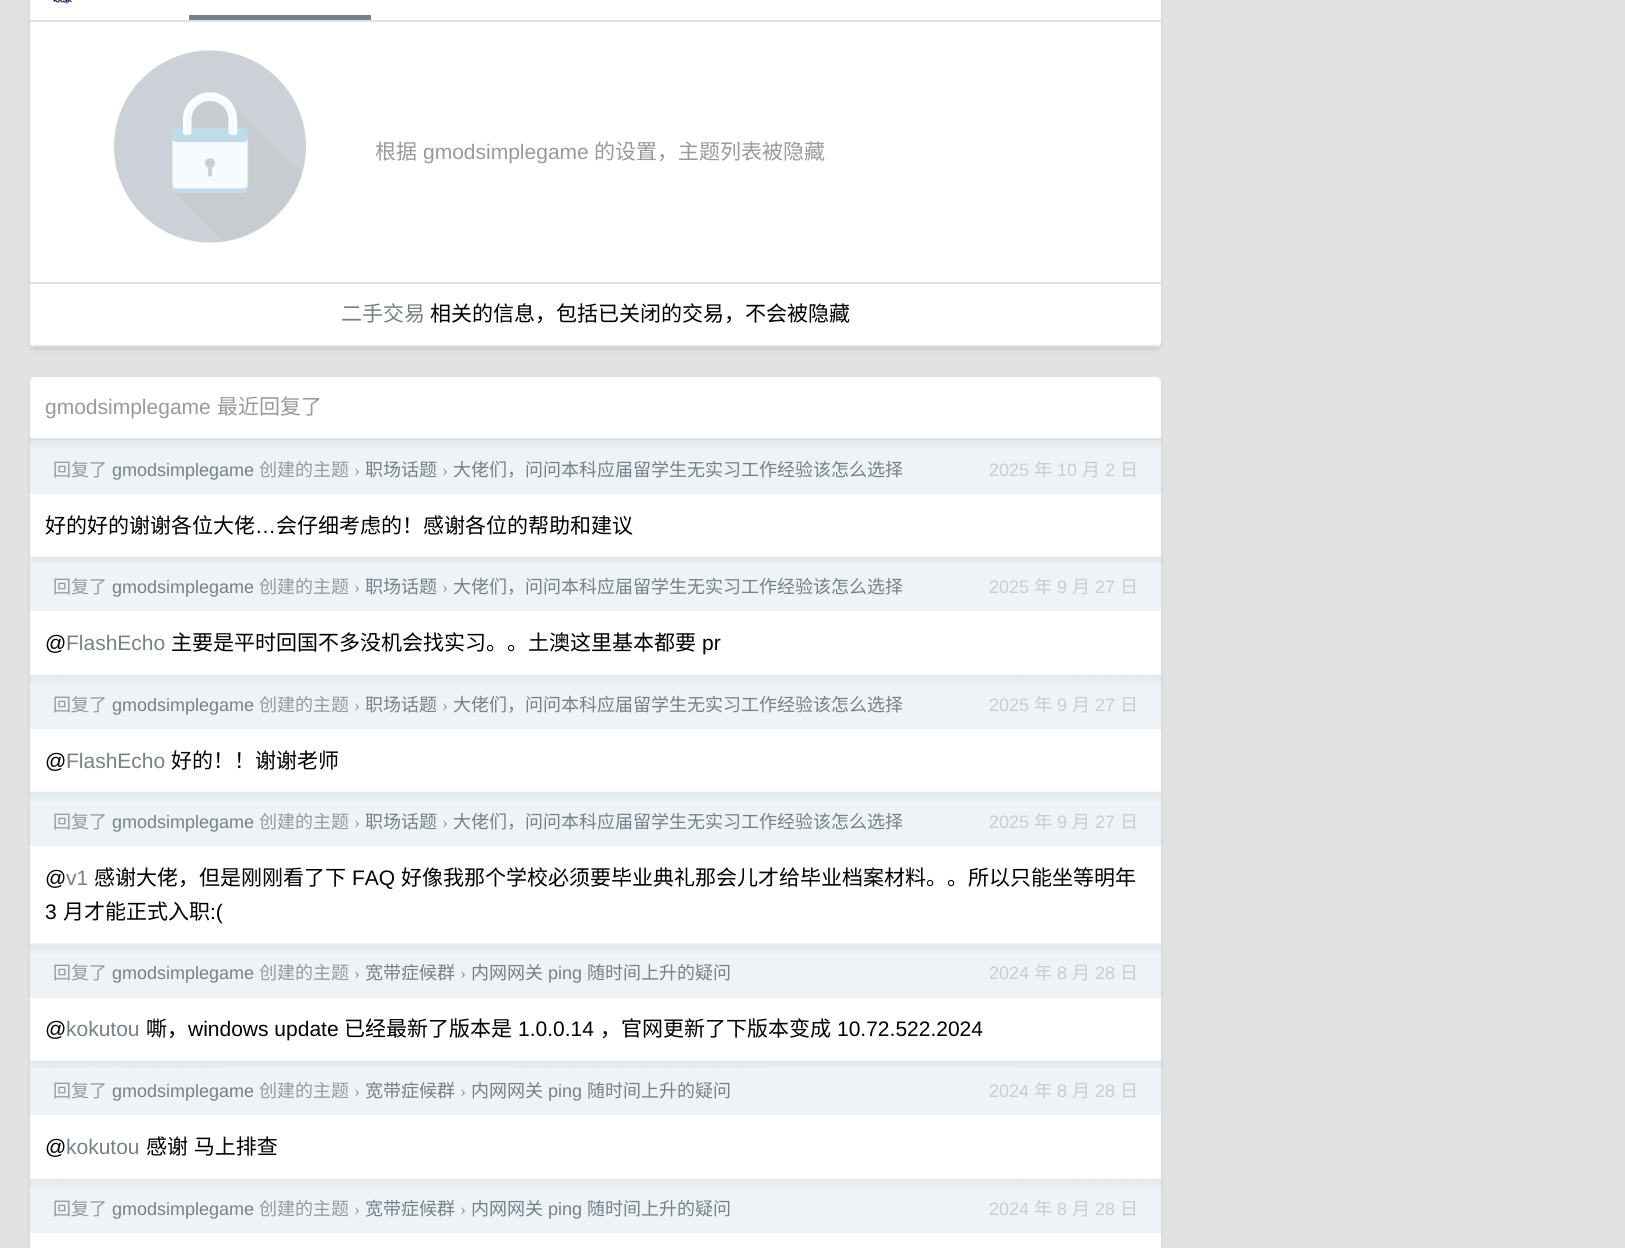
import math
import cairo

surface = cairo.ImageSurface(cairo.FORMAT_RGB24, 1625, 1248)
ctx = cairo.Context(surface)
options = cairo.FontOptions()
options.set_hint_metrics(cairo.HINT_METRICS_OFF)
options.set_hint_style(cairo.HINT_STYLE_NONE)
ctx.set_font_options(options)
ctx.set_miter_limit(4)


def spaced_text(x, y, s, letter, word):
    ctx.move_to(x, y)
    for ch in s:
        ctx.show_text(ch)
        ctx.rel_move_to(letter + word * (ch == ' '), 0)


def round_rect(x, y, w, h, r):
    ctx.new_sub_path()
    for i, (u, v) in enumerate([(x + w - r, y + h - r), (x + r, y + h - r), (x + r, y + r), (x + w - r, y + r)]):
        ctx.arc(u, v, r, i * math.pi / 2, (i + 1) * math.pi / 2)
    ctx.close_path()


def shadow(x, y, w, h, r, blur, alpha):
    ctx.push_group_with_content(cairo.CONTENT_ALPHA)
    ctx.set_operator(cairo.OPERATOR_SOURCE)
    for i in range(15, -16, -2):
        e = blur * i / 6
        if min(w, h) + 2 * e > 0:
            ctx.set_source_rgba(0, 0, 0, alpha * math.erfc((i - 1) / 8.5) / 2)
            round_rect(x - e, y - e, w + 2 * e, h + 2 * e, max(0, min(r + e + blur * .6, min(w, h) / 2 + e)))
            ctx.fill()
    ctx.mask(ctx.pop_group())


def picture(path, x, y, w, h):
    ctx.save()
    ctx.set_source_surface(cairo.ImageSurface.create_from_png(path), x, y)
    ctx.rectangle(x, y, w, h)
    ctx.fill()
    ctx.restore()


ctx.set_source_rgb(0.886, 0.886, 0.886)
ctx.paint()
ctx.set_source_rgb(0, 0, 0)
shadow(30, -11, 1131, 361, 5, 2, 0.1)
ctx.set_source_rgb(1, 1, 1)
round_rect(30, -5, 1131, 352, 5)
ctx.fill()
ctx.set_source_rgb(0.886, 0.886, 0.886)
ctx.rectangle(33, 345, 1127, 2)
ctx.fill()
ctx.rectangle(30, 20, 1131, 2)
ctx.fill()
picture("img1.png", 53, 0, 19, 4)
ctx.set_source_rgb(0.467, 0.502, 0.529)
ctx.rectangle(189, 15, 182, 5)
ctx.fill()
ctx.set_source_rgb(0.886, 0.886, 0.886)
ctx.rectangle(30, 282, 1131, 2)
ctx.fill()
picture("img2.png", 114, 50, 192, 193)
ctx.select_font_face("Noto Sans CJK SC")
ctx.set_font_size(21)
ctx.set_source_rgb(0.6, 0.6, 0.6)
ctx.move_to(375, 159)
ctx.show_text("根据")
ctx.select_font_face("Liberation Sans")
ctx.move_to(423, 159)
ctx.show_text("gmodsimplegame")
ctx.select_font_face("Noto Sans CJK SC")
ctx.move_to(594, 159)
ctx.show_text("的设置，主题列表被隐藏")
ctx.set_source_rgb(0.467, 0.502, 0.529)
ctx.move_to(341, 321)
ctx.show_text("二手交易")
ctx.set_source_rgb(0, 0, 0)
ctx.move_to(430, 321)
ctx.show_text("相关的信息，包括已关闭的交易，不会被隐藏")
ctx.set_source_rgb(0, 0, 0)
shadow(30, 380, 1131, 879, 5, 2, 0.1)
ctx.set_source_rgb(1, 1, 1)
round_rect(30, 377, 1131, 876, 5)
ctx.fill()
ctx.set_source_rgb(0.886, 0.886, 0.886)
ctx.rectangle(30, 438, 1131, 2)
ctx.fill()
ctx.select_font_face("Liberation Sans")
ctx.set_source_rgb(0.6, 0.6, 0.6)
ctx.move_to(45, 414)
ctx.show_text("gmodsimplegame")
ctx.select_font_face("Noto Sans CJK SC")
ctx.move_to(217, 414)
ctx.show_text("最近回复了")
ctx.set_source_rgb(0.929, 0.953, 0.961)
ctx.rectangle(30, 440, 1131, 54)
ctx.fill()
picture("img3.png", 30, 439, 1131, 8)
ctx.set_font_size(18)
ctx.set_source_rgb(0.6, 0.6, 0.6)
ctx.move_to(53, 476)
ctx.show_text("回复了")
ctx.select_font_face("Liberation Sans")
ctx.set_source_rgb(0.467, 0.502, 0.529)
ctx.move_to(112, 476)
ctx.show_text("gmodsimplegame")
ctx.select_font_face("Noto Sans CJK SC")
ctx.set_source_rgb(0.6, 0.6, 0.6)
ctx.move_to(259, 476)
ctx.show_text("创建的主题")
ctx.select_font_face("Liberation Serif")
ctx.move_to(354, 476)
ctx.show_text("›")
ctx.select_font_face("Noto Sans CJK SC")
ctx.set_source_rgb(0.467, 0.502, 0.529)
ctx.move_to(365, 476)
ctx.show_text("职场话题")
ctx.select_font_face("Liberation Serif")
ctx.set_source_rgb(0.6, 0.6, 0.6)
ctx.move_to(442, 476)
ctx.show_text("›")
ctx.select_font_face("Noto Sans CJK SC")
ctx.set_source_rgb(0.467, 0.502, 0.529)
ctx.move_to(453, 476)
ctx.show_text("大佬们，问问本科应届留学生无实习工作经验该怎么选择")
ctx.select_font_face("Liberation Sans")
ctx.set_source_rgb(0.8, 0.8, 0.8)
ctx.move_to(989, 476)
ctx.show_text("2025")
ctx.select_font_face("Noto Sans CJK SC")
ctx.move_to(1034, 476)
ctx.show_text("年")
ctx.select_font_face("Liberation Sans")
ctx.move_to(1057, 476)
ctx.show_text("10")
ctx.select_font_face("Noto Sans CJK SC")
ctx.move_to(1082, 476)
ctx.show_text("月")
ctx.select_font_face("Liberation Sans")
ctx.move_to(1105, 476)
ctx.show_text("2")
ctx.select_font_face("Noto Sans CJK SC")
ctx.move_to(1120, 476)
ctx.show_text("日")
ctx.set_font_size(21)
ctx.set_source_rgb(0, 0, 0)
ctx.move_to(45, 533)
ctx.show_text("好的好的谢谢各位大佬")
ctx.select_font_face("Liberation Sans")
ctx.move_to(255, 533)
ctx.show_text("…")
ctx.select_font_face("Noto Sans CJK SC")
ctx.move_to(276, 533)
ctx.show_text("会仔细考虑的！感谢各位的帮助和建议")
ctx.set_source_rgb(0.929, 0.953, 0.961)
ctx.rectangle(30, 557, 1131, 54)
ctx.fill()
picture("img4.png", 30, 556, 1131, 8)
ctx.set_font_size(18)
ctx.set_source_rgb(0.6, 0.6, 0.6)
ctx.move_to(53, 593)
ctx.show_text("回复了")
ctx.select_font_face("Liberation Sans")
ctx.set_source_rgb(0.467, 0.502, 0.529)
ctx.move_to(112, 593)
ctx.show_text("gmodsimplegame")
ctx.select_font_face("Noto Sans CJK SC")
ctx.set_source_rgb(0.6, 0.6, 0.6)
ctx.move_to(259, 593)
ctx.show_text("创建的主题")
ctx.select_font_face("Liberation Serif")
ctx.move_to(354, 593)
ctx.show_text("›")
ctx.select_font_face("Noto Sans CJK SC")
ctx.set_source_rgb(0.467, 0.502, 0.529)
ctx.move_to(365, 593)
ctx.show_text("职场话题")
ctx.select_font_face("Liberation Serif")
ctx.set_source_rgb(0.6, 0.6, 0.6)
ctx.move_to(442, 593)
ctx.show_text("›")
ctx.select_font_face("Noto Sans CJK SC")
ctx.set_source_rgb(0.467, 0.502, 0.529)
ctx.move_to(453, 593)
ctx.show_text("大佬们，问问本科应届留学生无实习工作经验该怎么选择")
ctx.select_font_face("Liberation Sans")
ctx.set_source_rgb(0.8, 0.8, 0.8)
ctx.move_to(989, 593)
ctx.show_text("2025")
ctx.select_font_face("Noto Sans CJK SC")
ctx.move_to(1034, 593)
ctx.show_text("年")
ctx.select_font_face("Liberation Sans")
ctx.move_to(1057, 593)
ctx.show_text("9")
ctx.select_font_face("Noto Sans CJK SC")
ctx.move_to(1072, 593)
ctx.show_text("月")
ctx.select_font_face("Liberation Sans")
ctx.move_to(1095, 593)
ctx.show_text("27")
ctx.select_font_face("Noto Sans CJK SC")
ctx.move_to(1120, 593)
ctx.show_text("日")
ctx.select_font_face("Liberation Sans")
ctx.set_font_size(21)
ctx.set_source_rgb(0, 0, 0)
ctx.move_to(45, 650)
ctx.show_text("@")
ctx.set_source_rgb(0.467, 0.502, 0.529)
ctx.move_to(66, 650)
ctx.show_text("FlashEcho")
ctx.select_font_face("Noto Sans CJK SC")
ctx.set_source_rgb(0, 0, 0)
ctx.move_to(171, 650)
ctx.show_text("主要是平时回国不多没机会找实习。。土澳这里基本都要")
ctx.select_font_face("Liberation Sans")
ctx.move_to(702, 650)
ctx.show_text("pr")
ctx.set_source_rgb(0.929, 0.953, 0.961)
ctx.rectangle(30, 675, 1131, 54)
ctx.fill()
picture("img5.png", 30, 674, 1131, 10)
ctx.select_font_face("Noto Sans CJK SC")
ctx.set_font_size(18)
ctx.set_source_rgb(0.6, 0.6, 0.6)
ctx.move_to(53, 711)
ctx.show_text("回复了")
ctx.select_font_face("Liberation Sans")
ctx.set_source_rgb(0.467, 0.502, 0.529)
ctx.move_to(112, 711)
ctx.show_text("gmodsimplegame")
ctx.select_font_face("Noto Sans CJK SC")
ctx.set_source_rgb(0.6, 0.6, 0.6)
ctx.move_to(259, 711)
ctx.show_text("创建的主题")
ctx.select_font_face("Liberation Serif")
ctx.move_to(354, 711)
ctx.show_text("›")
ctx.select_font_face("Noto Sans CJK SC")
ctx.set_source_rgb(0.467, 0.502, 0.529)
ctx.move_to(365, 711)
ctx.show_text("职场话题")
ctx.select_font_face("Liberation Serif")
ctx.set_source_rgb(0.6, 0.6, 0.6)
ctx.move_to(442, 711)
ctx.show_text("›")
ctx.select_font_face("Noto Sans CJK SC")
ctx.set_source_rgb(0.467, 0.502, 0.529)
ctx.move_to(453, 711)
ctx.show_text("大佬们，问问本科应届留学生无实习工作经验该怎么选择")
ctx.select_font_face("Liberation Sans")
ctx.set_source_rgb(0.8, 0.8, 0.8)
ctx.move_to(989, 711)
ctx.show_text("2025")
ctx.select_font_face("Noto Sans CJK SC")
ctx.move_to(1034, 711)
ctx.show_text("年")
ctx.select_font_face("Liberation Sans")
ctx.move_to(1057, 711)
ctx.show_text("9")
ctx.select_font_face("Noto Sans CJK SC")
ctx.move_to(1072, 711)
ctx.show_text("月")
ctx.select_font_face("Liberation Sans")
ctx.move_to(1095, 711)
ctx.show_text("27")
ctx.select_font_face("Noto Sans CJK SC")
ctx.move_to(1120, 711)
ctx.show_text("日")
ctx.select_font_face("Liberation Sans")
ctx.set_font_size(21)
ctx.set_source_rgb(0, 0, 0)
ctx.move_to(45, 768)
ctx.show_text("@")
ctx.set_source_rgb(0.467, 0.502, 0.529)
ctx.move_to(66, 768)
ctx.show_text("FlashEcho")
ctx.select_font_face("Noto Sans CJK SC")
ctx.set_source_rgb(0, 0, 0)
ctx.move_to(171, 768)
ctx.show_text("好的！！谢谢老师")
ctx.set_source_rgb(0.929, 0.953, 0.961)
ctx.rectangle(30, 792, 1131, 54)
ctx.fill()
picture("img6.png", 30, 791, 1131, 10)
ctx.set_font_size(18)
ctx.set_source_rgb(0.6, 0.6, 0.6)
ctx.move_to(53, 828)
ctx.show_text("回复了")
ctx.select_font_face("Liberation Sans")
ctx.set_source_rgb(0.467, 0.502, 0.529)
ctx.move_to(112, 828)
ctx.show_text("gmodsimplegame")
ctx.select_font_face("Noto Sans CJK SC")
ctx.set_source_rgb(0.6, 0.6, 0.6)
ctx.move_to(259, 828)
ctx.show_text("创建的主题")
ctx.select_font_face("Liberation Serif")
ctx.move_to(354, 828)
ctx.show_text("›")
ctx.select_font_face("Noto Sans CJK SC")
ctx.set_source_rgb(0.467, 0.502, 0.529)
ctx.move_to(365, 828)
ctx.show_text("职场话题")
ctx.select_font_face("Liberation Serif")
ctx.set_source_rgb(0.6, 0.6, 0.6)
ctx.move_to(442, 828)
ctx.show_text("›")
ctx.select_font_face("Noto Sans CJK SC")
ctx.set_source_rgb(0.467, 0.502, 0.529)
ctx.move_to(453, 828)
ctx.show_text("大佬们，问问本科应届留学生无实习工作经验该怎么选择")
ctx.select_font_face("Liberation Sans")
ctx.set_source_rgb(0.8, 0.8, 0.8)
ctx.move_to(989, 828)
ctx.show_text("2025")
ctx.select_font_face("Noto Sans CJK SC")
ctx.move_to(1034, 828)
ctx.show_text("年")
ctx.select_font_face("Liberation Sans")
ctx.move_to(1057, 828)
ctx.show_text("9")
ctx.select_font_face("Noto Sans CJK SC")
ctx.move_to(1072, 828)
ctx.show_text("月")
ctx.select_font_face("Liberation Sans")
ctx.move_to(1095, 828)
ctx.show_text("27")
ctx.select_font_face("Noto Sans CJK SC")
ctx.move_to(1120, 828)
ctx.show_text("日")
ctx.select_font_face("Liberation Sans")
ctx.set_font_size(21)
ctx.set_source_rgb(0, 0, 0)
ctx.move_to(45, 885)
ctx.show_text("@")
ctx.set_source_rgb(0.467, 0.502, 0.529)
ctx.move_to(66, 885)
ctx.show_text("v1")
ctx.select_font_face("Noto Sans CJK SC")
ctx.set_source_rgb(0, 0, 0)
ctx.move_to(94, 885)
ctx.show_text("感谢大佬，但是刚刚看了下")
ctx.select_font_face("Liberation Sans")
ctx.move_to(352, 885)
ctx.show_text("FAQ")
ctx.select_font_face("Noto Sans CJK SC")
ctx.move_to(401, 885)
ctx.show_text("好像我那个学校必须要毕业典礼那会儿才给毕业档案材料。。所以只能坐等明年")
ctx.select_font_face("Liberation Sans")
ctx.move_to(45, 919)
ctx.show_text("3")
ctx.select_font_face("Noto Sans CJK SC")
ctx.move_to(63, 919)
ctx.show_text("月才能正式入职")
ctx.select_font_face("Liberation Sans")
ctx.move_to(210, 919)
ctx.show_text(":(")
ctx.set_source_rgb(0.929, 0.953, 0.961)
ctx.rectangle(30, 944, 1131, 54)
ctx.fill()
picture("img7.png", 30, 943, 1131, 10)
ctx.select_font_face("Noto Sans CJK SC")
ctx.set_font_size(18)
ctx.set_source_rgb(0.6, 0.6, 0.6)
ctx.move_to(53, 979)
ctx.show_text("回复了")
ctx.select_font_face("Liberation Sans")
ctx.set_source_rgb(0.467, 0.502, 0.529)
ctx.move_to(112, 979)
ctx.show_text("gmodsimplegame")
ctx.select_font_face("Noto Sans CJK SC")
ctx.set_source_rgb(0.6, 0.6, 0.6)
ctx.move_to(259, 979)
ctx.show_text("创建的主题")
ctx.select_font_face("Liberation Serif")
ctx.move_to(354, 979)
ctx.show_text("›")
ctx.select_font_face("Noto Sans CJK SC")
ctx.set_source_rgb(0.467, 0.502, 0.529)
ctx.move_to(365, 979)
ctx.show_text("宽带症候群")
ctx.select_font_face("Liberation Serif")
ctx.set_source_rgb(0.6, 0.6, 0.6)
ctx.move_to(460, 979)
ctx.show_text("›")
ctx.select_font_face("Noto Sans CJK SC")
ctx.set_source_rgb(0.467, 0.502, 0.529)
ctx.move_to(471, 979)
ctx.show_text("内网网关")
ctx.select_font_face("Liberation Sans")
ctx.move_to(548, 979)
ctx.show_text("ping")
ctx.select_font_face("Noto Sans CJK SC")
ctx.move_to(587, 979)
ctx.show_text("随时间上升的疑问")
ctx.select_font_face("Liberation Sans")
ctx.set_source_rgb(0.8, 0.8, 0.8)
ctx.move_to(989, 979)
ctx.show_text("2024")
ctx.select_font_face("Noto Sans CJK SC")
ctx.move_to(1034, 979)
ctx.show_text("年")
ctx.select_font_face("Liberation Sans")
ctx.move_to(1057, 979)
ctx.show_text("8")
ctx.select_font_face("Noto Sans CJK SC")
ctx.move_to(1072, 979)
ctx.show_text("月")
ctx.select_font_face("Liberation Sans")
ctx.move_to(1095, 979)
ctx.show_text("28")
ctx.select_font_face("Noto Sans CJK SC")
ctx.move_to(1120, 979)
ctx.show_text("日")
ctx.select_font_face("Liberation Sans")
ctx.set_font_size(21)
ctx.set_source_rgb(0, 0, 0)
ctx.move_to(45, 1036)
ctx.show_text("@")
ctx.set_source_rgb(0.467, 0.502, 0.529)
ctx.move_to(66, 1036)
ctx.show_text("kokutou")
ctx.select_font_face("Noto Sans CJK SC")
ctx.set_source_rgb(0, 0, 0)
ctx.move_to(146, 1036)
ctx.show_text("嘶，")
ctx.select_font_face("Liberation Sans")
ctx.move_to(188, 1036)
ctx.show_text("windows update")
ctx.select_font_face("Noto Sans CJK SC")
ctx.move_to(344, 1036)
ctx.show_text("已经最新了版本是")
ctx.select_font_face("Liberation Sans")
ctx.move_to(518, 1036)
ctx.show_text("1.0.0.14")
ctx.select_font_face("Noto Sans CJK SC")
ctx.move_to(600, 1036)
ctx.show_text("，官网更新了下版本变成")
ctx.select_font_face("Liberation Sans")
ctx.move_to(837, 1036)
ctx.show_text("10.72.522.2024")
ctx.set_source_rgb(0.929, 0.953, 0.961)
ctx.rectangle(30, 1061, 1131, 54)
ctx.fill()
picture("img8.png", 30, 1060, 1131, 8)
ctx.select_font_face("Noto Sans CJK SC")
ctx.set_font_size(18)
ctx.set_source_rgb(0.6, 0.6, 0.6)
ctx.move_to(53, 1097)
ctx.show_text("回复了")
ctx.select_font_face("Liberation Sans")
ctx.set_source_rgb(0.467, 0.502, 0.529)
ctx.move_to(112, 1097)
ctx.show_text("gmodsimplegame")
ctx.select_font_face("Noto Sans CJK SC")
ctx.set_source_rgb(0.6, 0.6, 0.6)
ctx.move_to(259, 1097)
ctx.show_text("创建的主题")
ctx.select_font_face("Liberation Serif")
ctx.move_to(354, 1097)
ctx.show_text("›")
ctx.select_font_face("Noto Sans CJK SC")
ctx.set_source_rgb(0.467, 0.502, 0.529)
ctx.move_to(365, 1097)
ctx.show_text("宽带症候群")
ctx.select_font_face("Liberation Serif")
ctx.set_source_rgb(0.6, 0.6, 0.6)
ctx.move_to(460, 1097)
ctx.show_text("›")
ctx.select_font_face("Noto Sans CJK SC")
ctx.set_source_rgb(0.467, 0.502, 0.529)
ctx.move_to(471, 1097)
ctx.show_text("内网网关")
ctx.select_font_face("Liberation Sans")
ctx.move_to(548, 1097)
ctx.show_text("ping")
ctx.select_font_face("Noto Sans CJK SC")
ctx.move_to(587, 1097)
ctx.show_text("随时间上升的疑问")
ctx.select_font_face("Liberation Sans")
ctx.set_source_rgb(0.8, 0.8, 0.8)
ctx.move_to(989, 1097)
ctx.show_text("2024")
ctx.select_font_face("Noto Sans CJK SC")
ctx.move_to(1034, 1097)
ctx.show_text("年")
ctx.select_font_face("Liberation Sans")
ctx.move_to(1057, 1097)
ctx.show_text("8")
ctx.select_font_face("Noto Sans CJK SC")
ctx.move_to(1072, 1097)
ctx.show_text("月")
ctx.select_font_face("Liberation Sans")
ctx.move_to(1095, 1097)
ctx.show_text("28")
ctx.select_font_face("Noto Sans CJK SC")
ctx.move_to(1120, 1097)
ctx.show_text("日")
ctx.select_font_face("Liberation Sans")
ctx.set_font_size(21)
ctx.set_source_rgb(0, 0, 0)
ctx.move_to(45, 1154)
ctx.show_text("@")
ctx.set_source_rgb(0.467, 0.502, 0.529)
ctx.move_to(66, 1154)
ctx.show_text("kokutou")
ctx.select_font_face("Noto Sans CJK SC")
ctx.set_source_rgb(0, 0, 0)
spaced_text(146, 1154, "感谢 马上排查", 0, 1)
ctx.set_source_rgb(0.929, 0.953, 0.961)
ctx.rectangle(30, 1179, 1131, 54)
ctx.fill()
picture("img5.png", 30, 1178, 1131, 10)
ctx.set_font_size(18)
ctx.set_source_rgb(0.6, 0.6, 0.6)
ctx.move_to(53, 1215)
ctx.show_text("回复了")
ctx.select_font_face("Liberation Sans")
ctx.set_source_rgb(0.467, 0.502, 0.529)
ctx.move_to(112, 1215)
ctx.show_text("gmodsimplegame")
ctx.select_font_face("Noto Sans CJK SC")
ctx.set_source_rgb(0.6, 0.6, 0.6)
ctx.move_to(259, 1215)
ctx.show_text("创建的主题")
ctx.select_font_face("Liberation Serif")
ctx.move_to(354, 1215)
ctx.show_text("›")
ctx.select_font_face("Noto Sans CJK SC")
ctx.set_source_rgb(0.467, 0.502, 0.529)
ctx.move_to(365, 1215)
ctx.show_text("宽带症候群")
ctx.select_font_face("Liberation Serif")
ctx.set_source_rgb(0.6, 0.6, 0.6)
ctx.move_to(460, 1215)
ctx.show_text("›")
ctx.select_font_face("Noto Sans CJK SC")
ctx.set_source_rgb(0.467, 0.502, 0.529)
ctx.move_to(471, 1215)
ctx.show_text("内网网关")
ctx.select_font_face("Liberation Sans")
ctx.move_to(548, 1215)
ctx.show_text("ping")
ctx.select_font_face("Noto Sans CJK SC")
ctx.move_to(587, 1215)
ctx.show_text("随时间上升的疑问")
ctx.select_font_face("Liberation Sans")
ctx.set_source_rgb(0.8, 0.8, 0.8)
ctx.move_to(989, 1215)
ctx.show_text("2024")
ctx.select_font_face("Noto Sans CJK SC")
ctx.move_to(1034, 1215)
ctx.show_text("年")
ctx.select_font_face("Liberation Sans")
ctx.move_to(1057, 1215)
ctx.show_text("8")
ctx.select_font_face("Noto Sans CJK SC")
ctx.move_to(1072, 1215)
ctx.show_text("月")
ctx.select_font_face("Liberation Sans")
ctx.move_to(1095, 1215)
ctx.show_text("28")
ctx.select_font_face("Noto Sans CJK SC")
ctx.move_to(1120, 1215)
ctx.show_text("日")
surface.write_to_png("page.png")
